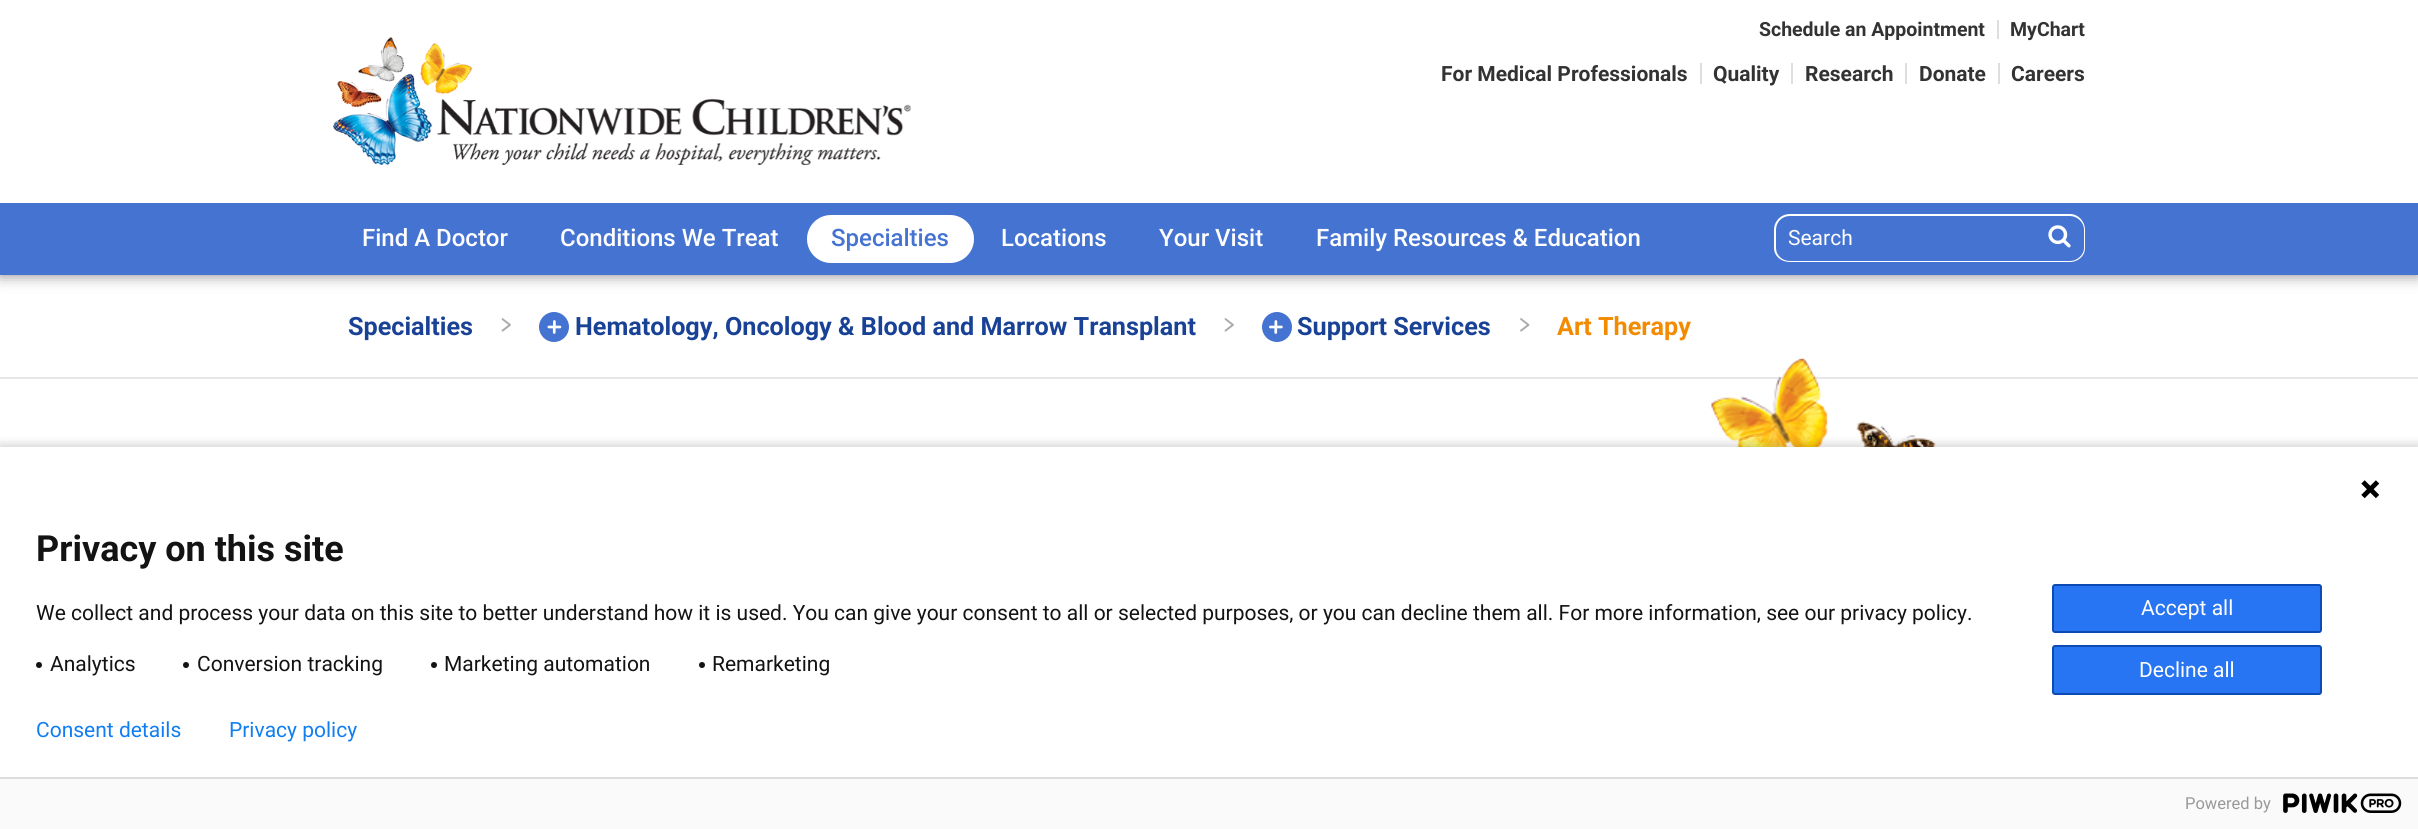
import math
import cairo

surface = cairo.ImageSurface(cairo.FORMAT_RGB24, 2418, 829)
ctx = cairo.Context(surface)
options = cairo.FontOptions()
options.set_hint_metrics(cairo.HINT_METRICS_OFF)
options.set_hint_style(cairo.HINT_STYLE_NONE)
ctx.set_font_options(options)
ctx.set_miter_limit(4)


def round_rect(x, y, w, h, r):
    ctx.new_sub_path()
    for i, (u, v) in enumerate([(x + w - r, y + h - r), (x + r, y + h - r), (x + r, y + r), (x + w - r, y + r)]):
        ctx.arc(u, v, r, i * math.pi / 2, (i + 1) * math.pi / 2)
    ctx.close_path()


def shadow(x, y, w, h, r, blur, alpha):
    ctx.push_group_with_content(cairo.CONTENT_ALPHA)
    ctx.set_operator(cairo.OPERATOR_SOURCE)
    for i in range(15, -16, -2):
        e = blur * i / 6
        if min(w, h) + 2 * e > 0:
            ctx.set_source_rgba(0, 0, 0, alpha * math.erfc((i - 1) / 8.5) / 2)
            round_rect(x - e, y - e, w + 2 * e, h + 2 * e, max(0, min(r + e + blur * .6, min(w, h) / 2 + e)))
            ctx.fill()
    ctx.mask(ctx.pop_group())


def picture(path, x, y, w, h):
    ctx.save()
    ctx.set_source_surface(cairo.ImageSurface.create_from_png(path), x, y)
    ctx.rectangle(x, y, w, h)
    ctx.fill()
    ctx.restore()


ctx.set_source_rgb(1, 1, 1)
ctx.paint()
ctx.set_source_rgb(0.039, 0.039, 0.039)
shadow(0, 0, 2418, 275, 0, 7.5, 0.5)
ctx.set_source_rgb(1, 1, 1)
ctx.rectangle(0, 0, 2418, 203)
ctx.fill()
picture("img1.png", 333, 37, 578, 128)
ctx.set_source_rgb(0.871, 0.871, 0.871)
ctx.rectangle(1997, 20, 2, 19)
ctx.fill()
ctx.select_font_face("Roboto", cairo.FONT_SLANT_NORMAL, cairo.FONT_WEIGHT_BOLD)
ctx.set_font_size(19.5)
ctx.set_source_rgb(0.2, 0.2, 0.2)
ctx.move_to(1759, 36)
ctx.show_text("Schedule an Appointment")
ctx.move_to(2010, 36)
ctx.show_text("MyChart")
ctx.set_source_rgb(0.871, 0.871, 0.871)
ctx.rectangle(1700, 63, 2, 21)
ctx.fill()
ctx.set_font_size(21)
ctx.set_source_rgb(0.2, 0.2, 0.2)
ctx.move_to(1441, 81)
ctx.show_text("For Medical Professionals")
ctx.set_source_rgb(0.871, 0.871, 0.871)
ctx.rectangle(1791, 63, 2, 21)
ctx.fill()
ctx.set_source_rgb(0.2, 0.2, 0.2)
ctx.move_to(1713, 81)
ctx.show_text("Quality")
ctx.set_source_rgb(0.871, 0.871, 0.871)
ctx.rectangle(1905, 63, 2, 21)
ctx.fill()
ctx.set_source_rgb(0.2, 0.2, 0.2)
ctx.move_to(1805, 81)
ctx.show_text("Research")
ctx.set_source_rgb(0.871, 0.871, 0.871)
ctx.rectangle(1998, 63, 2, 21)
ctx.fill()
ctx.set_source_rgb(0.2, 0.2, 0.2)
ctx.move_to(1919, 81)
ctx.show_text("Donate")
ctx.move_to(2011, 81)
ctx.show_text("Careers")
ctx.set_source_rgb(0.271, 0.451, 0.82)
ctx.rectangle(0, 203, 2418, 72)
ctx.fill()
ctx.select_font_face("Roboto Medium")
ctx.set_font_size(24)
ctx.set_source_rgb(0.996, 0.996, 0.996)
ctx.move_to(362, 246)
ctx.show_text("Find A Doctor")
ctx.move_to(560, 246)
ctx.show_text("Conditions We Treat")
ctx.set_source_rgb(1, 1, 1)
round_rect(807, 215, 167, 48, 24)
ctx.fill()
ctx.set_source_rgb(0.271, 0.451, 0.82)
ctx.move_to(831, 246)
ctx.show_text("Specialties")
ctx.set_source_rgb(0.996, 0.996, 0.996)
ctx.move_to(1001, 246)
ctx.show_text("Locations")
ctx.move_to(1159, 246)
ctx.show_text("Your Visit")
ctx.move_to(1316, 246)
ctx.show_text("Family Resources & Education")
ctx.set_fill_rule(cairo.FILL_RULE_EVEN_ODD)
ctx.new_path()
ctx.move_to(1790, 214)
ctx.line_to(2040, 214)
ctx.line_to(2040, 262)
ctx.line_to(1790, 262)
ctx.curve_to(1781, 262, 1774, 256, 1774, 248)
ctx.line_to(1774, 230)
ctx.curve_to(1774, 221, 1781, 214, 1790, 214)
ctx.close_path()
ctx.move_to(1790, 216)
ctx.line_to(2040, 216)
ctx.line_to(2040, 261)
ctx.line_to(1790, 261)
ctx.curve_to(1782, 261, 1776, 255, 1776, 248)
ctx.line_to(1776, 230)
ctx.curve_to(1776, 222, 1782, 216, 1790, 216)
ctx.close_path()
ctx.fill()
ctx.select_font_face("Roboto")
ctx.set_font_size(21)
ctx.move_to(1788, 245)
ctx.show_text("Search")
ctx.new_path()
ctx.move_to(2040, 214)
ctx.line_to(2070, 214)
ctx.curve_to(2078, 214, 2085, 221, 2085, 230)
ctx.line_to(2085, 248)
ctx.curve_to(2085, 256, 2078, 262, 2070, 262)
ctx.line_to(2040, 262)
ctx.close_path()
ctx.move_to(2040, 216)
ctx.line_to(2070, 216)
ctx.curve_to(2077, 216, 2084, 222, 2084, 230)
ctx.line_to(2084, 248)
ctx.curve_to(2084, 255, 2077, 261, 2070, 261)
ctx.line_to(2040, 261)
ctx.close_path()
ctx.fill()
picture("img2.png", 2048, 225, 23, 23)
ctx.set_source_rgb(0.902, 0.906, 0.91)
ctx.rectangle(0, 377, 2418, 2)
ctx.fill()
ctx.select_font_face("Roboto", cairo.FONT_SLANT_NORMAL, cairo.FONT_WEIGHT_BOLD)
ctx.set_font_size(25.2)
ctx.set_source_rgb(0.098, 0.259, 0.588)
ctx.move_to(348, 335)
ctx.show_text("Specialties")
picture("img3.png", 501, 318, 10, 14)
ctx.set_source_rgb(0.271, 0.451, 0.82)
ctx.arc(554, 327, 15, 0, 2 * math.pi)
ctx.fill()
picture("img4.png", 547, 320, 15, 14)
ctx.set_source_rgb(0.098, 0.259, 0.588)
ctx.move_to(575, 335)
ctx.show_text("Hematology, Oncology & Blood and Marrow Transplant")
picture("img3.png", 1224, 318, 10, 14)
ctx.set_source_rgb(0.271, 0.451, 0.82)
ctx.arc(1277, 327, 15, 0, 2 * math.pi)
ctx.fill()
picture("img5.png", 1269, 320, 14, 14)
ctx.set_source_rgb(0.098, 0.259, 0.588)
ctx.move_to(1297, 335)
ctx.show_text("Support Services")
picture("img6.png", 1520, 318, 10, 14)
ctx.set_source_rgb(0.953, 0.545, 0)
ctx.move_to(1557, 335)
ctx.show_text("Art Therapy")
picture("img7.png", 1711, 358, 225, 89)
ctx.set_source_rgb(0, 0, 0)
shadow(-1, 443, 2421, 385, 0, 4, 0.14)
ctx.set_source_rgb(1, 1, 1)
ctx.rectangle(0, 447, 2418, 330)
ctx.fill()
picture("img8.png", 2361, 480, 19, 19)
ctx.set_font_size(36)
ctx.set_source_rgb(0.075, 0.075, 0.075)
ctx.move_to(36, 561)
ctx.show_text("Privacy on this site")
ctx.select_font_face("Roboto")
ctx.set_font_size(21)
ctx.move_to(36, 620)
ctx.show_text("We collect and process your data on this site to better understand how it is used. You can give your consent to all or selected purposes, or you can decline them all. For more information, see our privacy policy.")
ctx.new_path()
ctx.arc(39, 665, 3, 0, 2 * math.pi)
ctx.fill()
ctx.move_to(50, 671)
ctx.show_text("Analytics")
ctx.new_path()
ctx.arc(186, 665, 3, 0, 2 * math.pi)
ctx.fill()
ctx.move_to(197, 671)
ctx.show_text("Conversion tracking")
ctx.new_path()
ctx.arc(434, 665, 3, 0, 2 * math.pi)
ctx.fill()
ctx.move_to(444, 671)
ctx.show_text("Marketing automation")
ctx.new_path()
ctx.arc(702, 665, 3, 0, 2 * math.pi)
ctx.fill()
ctx.move_to(712, 671)
ctx.show_text("Remarketing")
ctx.set_source_rgb(0.153, 0.459, 0.949)
round_rect(2053, 585, 268, 47, 2)
ctx.fill_preserve()
ctx.set_source_rgb(0.043, 0.294, 0.702)
ctx.stroke()
ctx.set_source_rgb(0.996, 0.996, 0.996)
ctx.move_to(2141, 615)
ctx.show_text("Accept all")
ctx.set_source_rgb(0.153, 0.459, 0.949)
round_rect(2053, 646, 268, 48, 2)
ctx.fill_preserve()
ctx.set_source_rgb(0.043, 0.294, 0.702)
ctx.stroke()
ctx.set_source_rgb(0.996, 0.996, 0.996)
ctx.move_to(2139, 677)
ctx.show_text("Decline all")
ctx.set_source_rgb(0.063, 0.494, 0.945)
ctx.move_to(36, 737)
ctx.show_text("Consent details")
ctx.move_to(229, 737)
ctx.show_text("Privacy policy")
ctx.set_source_rgb(0.98, 0.98, 0.98)
ctx.rectangle(0, 779, 2418, 50)
ctx.fill()
ctx.set_source_rgb(0.867, 0.867, 0.867)
ctx.rectangle(0, 777, 2418, 2)
ctx.fill()
ctx.set_font_size(16.5)
ctx.set_source_rgb(0.6, 0.6, 0.6)
ctx.move_to(2185, 809)
ctx.show_text("Powered by")
picture("img9.png", 2283, 793, 119, 20)
surface.write_to_png("page.png")
